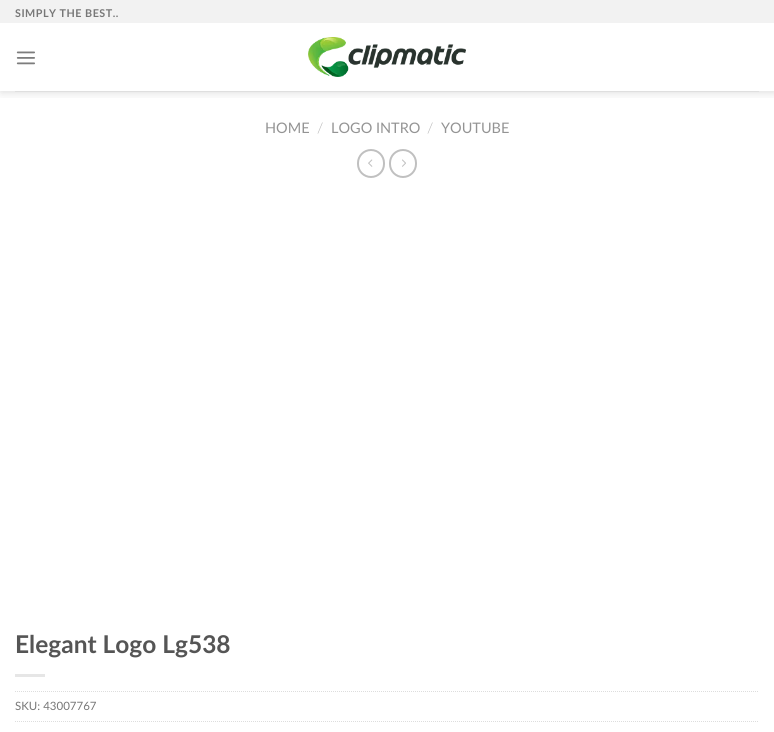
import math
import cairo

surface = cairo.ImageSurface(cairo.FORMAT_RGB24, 774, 732)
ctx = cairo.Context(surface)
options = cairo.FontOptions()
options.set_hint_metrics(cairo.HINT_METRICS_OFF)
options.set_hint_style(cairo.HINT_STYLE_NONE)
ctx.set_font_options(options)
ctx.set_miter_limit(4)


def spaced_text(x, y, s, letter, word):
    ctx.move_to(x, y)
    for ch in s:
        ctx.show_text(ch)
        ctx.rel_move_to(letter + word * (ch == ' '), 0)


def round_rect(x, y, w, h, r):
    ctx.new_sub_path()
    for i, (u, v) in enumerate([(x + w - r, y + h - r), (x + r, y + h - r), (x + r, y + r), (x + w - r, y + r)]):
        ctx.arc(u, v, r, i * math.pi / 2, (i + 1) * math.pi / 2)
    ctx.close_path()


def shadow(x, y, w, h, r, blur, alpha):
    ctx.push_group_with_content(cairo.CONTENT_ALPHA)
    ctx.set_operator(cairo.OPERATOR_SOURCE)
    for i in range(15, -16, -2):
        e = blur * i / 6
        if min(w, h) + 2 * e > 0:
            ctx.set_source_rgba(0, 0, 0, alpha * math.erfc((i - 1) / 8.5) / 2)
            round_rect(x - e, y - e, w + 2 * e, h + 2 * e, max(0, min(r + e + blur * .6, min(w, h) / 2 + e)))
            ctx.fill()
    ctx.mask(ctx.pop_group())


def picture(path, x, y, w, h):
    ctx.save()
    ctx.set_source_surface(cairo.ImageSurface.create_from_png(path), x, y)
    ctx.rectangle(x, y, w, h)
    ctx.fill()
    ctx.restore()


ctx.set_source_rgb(1, 1, 1)
ctx.paint()
ctx.save()
ctx.rectangle(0, 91, 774, 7)
ctx.clip()
ctx.set_source_rgb(0, 0, 0)
shadow(1, 1, 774, 91, 0, 5, 0.15)
ctx.restore()
ctx.set_source_rgb(0.949, 0.949, 0.949)
ctx.rectangle(0, 0, 774, 23)
ctx.fill()
ctx.select_font_face("Lato", cairo.FONT_SLANT_NORMAL, cairo.FONT_WEIGHT_BOLD)
ctx.set_font_size(10.75)
ctx.set_source_rgb(0.467, 0.467, 0.467)
spaced_text(15, 17, "SIMPLY THE BEST..", 0.5, 0)
picture("img1.png", 16, 51, 19, 14)
picture("img2.png", 308, 37, 158, 40)
ctx.set_source_rgb(0.875, 0.875, 0.875)
ctx.rectangle(15, 91, 744, 1)
ctx.fill()
ctx.select_font_face("Lato")
ctx.set_font_size(14.5)
ctx.set_source_rgb(0.58, 0.58, 0.58)
ctx.move_to(265, 133)
ctx.show_text("HOME")
ctx.select_font_face("Lato Light")
ctx.set_source_rgb(0.698, 0.698, 0.698)
ctx.move_to(317, 133)
ctx.show_text("/")
ctx.select_font_face("Lato")
ctx.set_source_rgb(0.58, 0.58, 0.58)
ctx.move_to(331, 133)
ctx.show_text("LOGO INTRO")
ctx.select_font_face("Lato Light")
ctx.set_source_rgb(0.698, 0.698, 0.698)
ctx.move_to(427, 133)
ctx.show_text("/")
ctx.select_font_face("Lato")
ctx.set_source_rgb(0.58, 0.58, 0.58)
ctx.move_to(441, 133)
ctx.show_text("YOUTUBE")
round_rect(358, 150, 26, 27, 13)
ctx.set_source_rgb(0.753, 0.753, 0.753)
ctx.stroke()
picture("img3.png", 368, 159, 5, 8)
round_rect(390, 150, 26, 27, 13)
ctx.stroke()
picture("img4.png", 402, 159, 4, 8)
ctx.select_font_face("Lato", cairo.FONT_SLANT_NORMAL, cairo.FONT_WEIGHT_BOLD)
ctx.set_font_size(24.5)
ctx.set_source_rgb(0.333, 0.333, 0.333)
ctx.move_to(15, 653)
ctx.show_text("Elegant Logo Lg538")
ctx.set_source_rgb(0.902, 0.902, 0.902)
ctx.rectangle(15, 674, 30, 3)
ctx.fill()
ctx.new_path()
ctx.move_to(15, 691.5)
ctx.line_to(759, 691.5)
ctx.set_source_rgb(0.867, 0.867, 0.867)
ctx.set_line_width(1)
ctx.set_dash([1, 1])
ctx.stroke()
ctx.select_font_face("Lato")
ctx.set_font_size(11.5)
ctx.set_source_rgb(0.467, 0.467, 0.467)
ctx.move_to(15, 710)
ctx.show_text("SKU: 43007767")
ctx.new_path()
ctx.move_to(15, 721.5)
ctx.line_to(759, 721.5)
ctx.set_source_rgb(0.867, 0.867, 0.867)
ctx.stroke()
surface.write_to_png("page.png")
